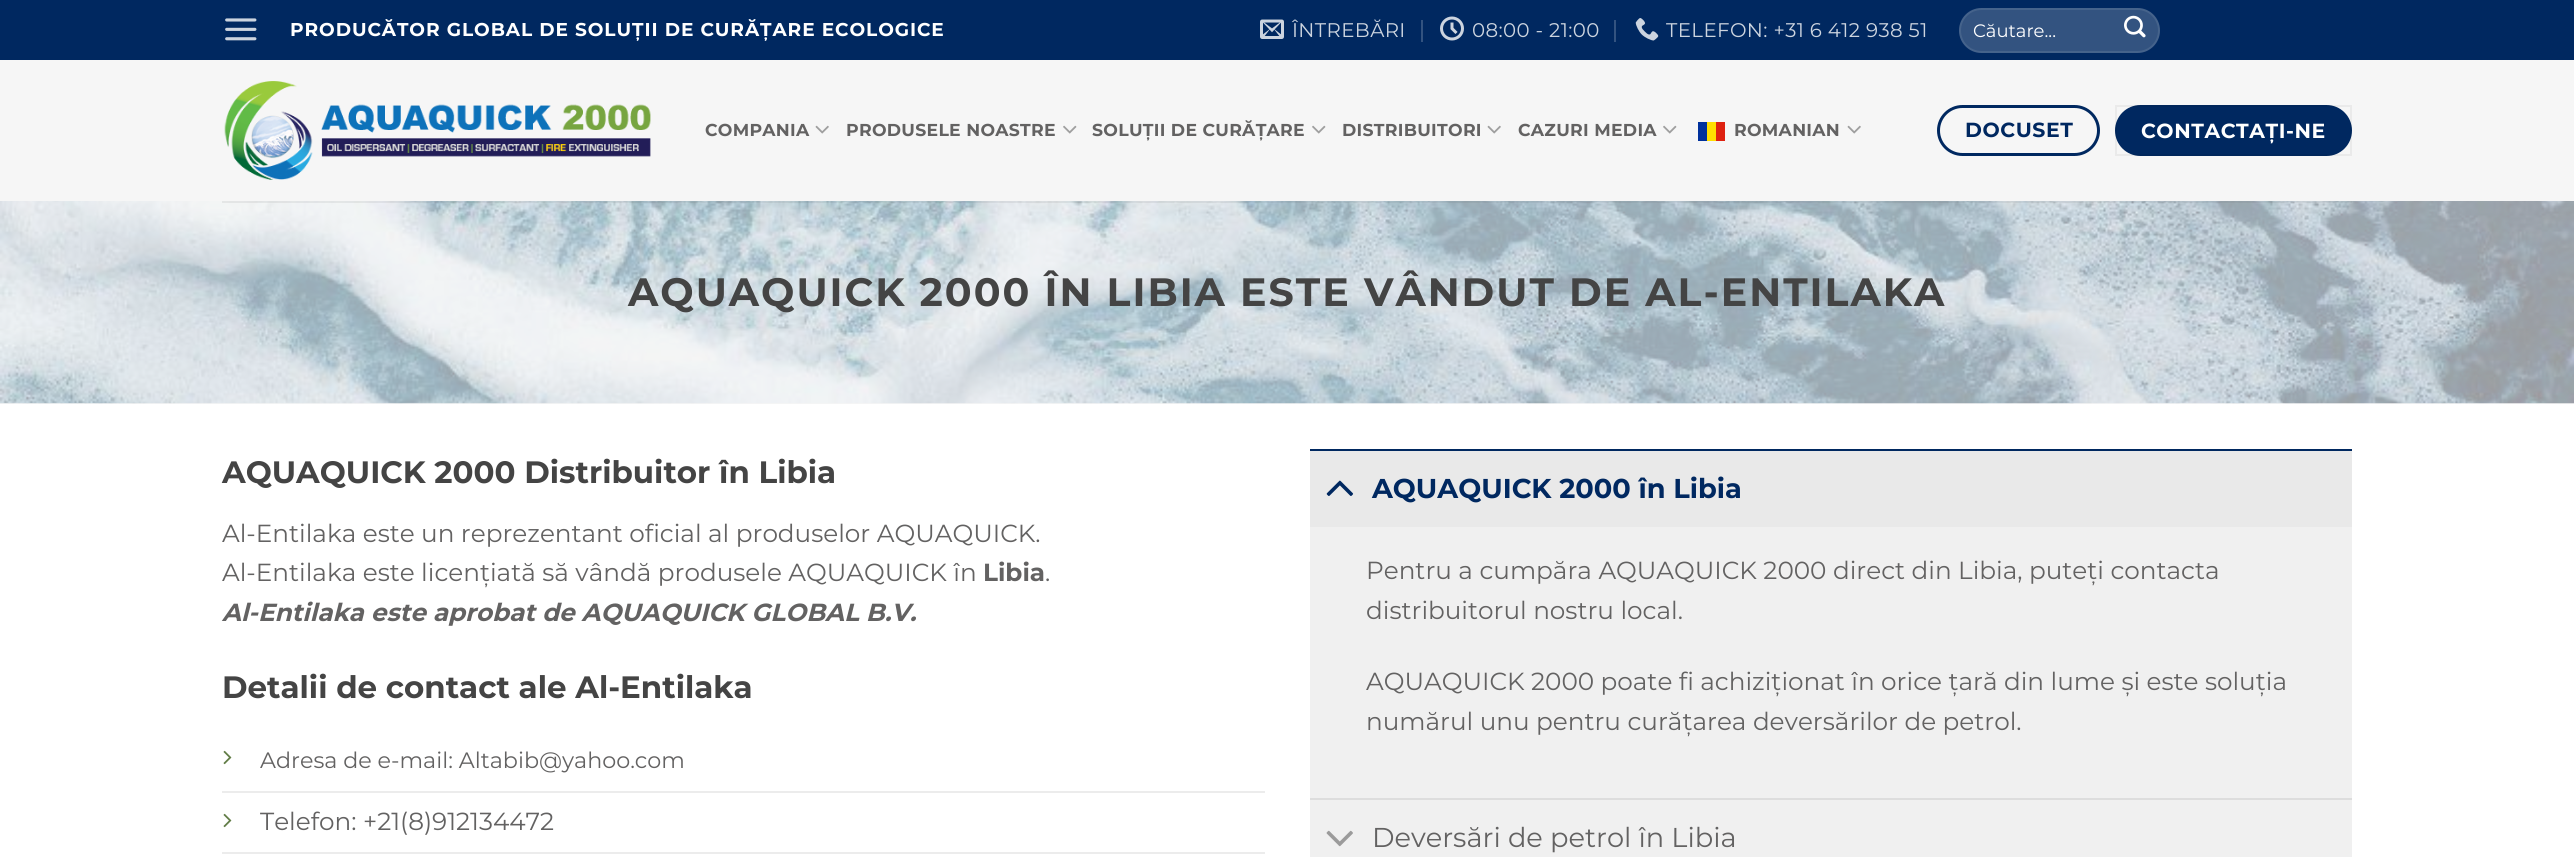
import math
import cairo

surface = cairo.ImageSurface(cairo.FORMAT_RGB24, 2574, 857)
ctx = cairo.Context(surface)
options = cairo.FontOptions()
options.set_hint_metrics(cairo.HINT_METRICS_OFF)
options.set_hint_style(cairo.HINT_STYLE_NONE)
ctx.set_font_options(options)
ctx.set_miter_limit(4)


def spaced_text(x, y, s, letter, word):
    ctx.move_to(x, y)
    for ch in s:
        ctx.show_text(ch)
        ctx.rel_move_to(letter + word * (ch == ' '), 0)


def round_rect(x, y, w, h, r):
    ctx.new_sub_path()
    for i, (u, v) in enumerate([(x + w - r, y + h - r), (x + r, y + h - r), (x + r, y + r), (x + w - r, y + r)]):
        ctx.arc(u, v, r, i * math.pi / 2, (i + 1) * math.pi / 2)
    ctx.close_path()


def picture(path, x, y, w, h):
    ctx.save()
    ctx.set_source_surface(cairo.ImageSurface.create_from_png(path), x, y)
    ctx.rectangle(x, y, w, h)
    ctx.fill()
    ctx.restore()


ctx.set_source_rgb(1, 1, 1)
ctx.paint()
ctx.set_source_rgb(0.961, 0.961, 0.961)
ctx.rectangle(0, 403, 2574, 1)
ctx.fill()
ctx.set_source_rgb(0, 0.157, 0.376)
ctx.rectangle(0, 0, 2574, 60)
ctx.fill()
picture("img1.png", 225, 18, 32, 23)
ctx.select_font_face("Montserrat", cairo.FONT_SLANT_NORMAL, cairo.FONT_WEIGHT_BOLD)
ctx.set_font_size(18.55)
ctx.set_source_rgb(1, 1, 1)
spaced_text(290, 36, "PRODUCĂTOR GLOBAL DE SOLUȚII DE CURĂȚARE ECOLOGICE", 0.93, 0)
picture("img2.png", 1260, 19, 24, 20)
ctx.select_font_face("Montserrat")
ctx.set_font_size(19.75)
ctx.set_source_rgb(0.8, 0.831, 0.875)
spaced_text(1292, 37, "ÎNTREBĂRI", 0.4, 0)
ctx.set_source_rgb(0.2, 0.325, 0.502)
ctx.rectangle(1421, 20, 2, 22)
ctx.fill()
picture("img3.png", 1440, 16, 24, 25)
ctx.set_source_rgb(0.8, 0.831, 0.875)
spaced_text(1472, 37, "08:00 - 21:00", 0.4, 0)
ctx.set_source_rgb(0.2, 0.325, 0.502)
ctx.rectangle(1614, 20, 2, 22)
ctx.fill()
picture("img4.png", 1635, 18, 24, 23)
ctx.set_source_rgb(0.8, 0.831, 0.875)
spaced_text(1666, 37, "TELEFON: +31 6 412 938 51", 0.4, 0)
ctx.set_source_rgb(0.2, 0.325, 0.502)
round_rect(1959, 8, 201, 45, 22.5)
ctx.fill()
round_rect(1960, 9, 199, 43, 21.5)
ctx.set_source_rgba(1, 1, 1, 0.09)
ctx.stroke()
ctx.set_font_size(18)
ctx.set_source_rgb(1, 1, 1)
ctx.move_to(1973, 37)
ctx.show_text("Căutare...")
picture("img5.png", 2124, 15, 22, 23)
ctx.set_source_rgb(0.961, 0.961, 0.961)
ctx.rectangle(0, 60, 2574, 141)
ctx.fill()
picture("img6.png", 224, 81, 427, 99)
ctx.select_font_face("Montserrat", cairo.FONT_SLANT_NORMAL, cairo.FONT_WEIGHT_BOLD)
ctx.set_font_size(17.25)
ctx.set_source_rgb(0.388, 0.384, 0.384)
spaced_text(705, 136, "COMPANIA", 0.3, 0)
picture("img7.png", 815, 125, 14, 9)
spaced_text(846, 136, "PRODUSELE NOASTRE", 0.3, 0)
picture("img8.png", 1063, 125, 14, 9)
spaced_text(1092, 136, "SOLUȚII DE CURĂȚARE", 0.3, 0)
picture("img8.png", 1312, 125, 14, 9)
spaced_text(1342, 136, "DISTRIBUITORI", 0.3, 0)
picture("img7.png", 1487, 125, 14, 9)
spaced_text(1518, 136, "CAZURI MEDIA", 0.3, 0)
picture("img8.png", 1663, 125, 14, 9)
ctx.set_source_rgb(0, 0.192, 0.612)
ctx.rectangle(1698, 122, 9, 19)
ctx.fill()
ctx.set_source_rgb(1, 0.871, 0)
ctx.rectangle(1707, 122, 9, 19)
ctx.fill()
ctx.set_source_rgb(0.871, 0.129, 0.063)
ctx.rectangle(1716, 122, 9, 19)
ctx.fill()
ctx.set_source_rgb(0.388, 0.384, 0.384)
spaced_text(1734, 136, "ROMANIAN", 0.3, 0)
picture("img7.png", 1847, 125, 14, 9)
round_rect(1938.5, 106.5, 160, 48, 24)
ctx.set_source_rgb(0, 0.157, 0.376)
ctx.set_line_width(3)
ctx.stroke()
ctx.set_font_size(20.4)
spaced_text(1965, 137, "DOCUSET", 0.6, 0)
round_rect(2115, 105, 237, 51, 25.5)
ctx.fill()
ctx.rectangle(2116, 106, 235, 49)
ctx.set_source_rgba(0, 0, 0, 0.05)
ctx.set_line_width(2)
ctx.stroke()
ctx.set_source_rgb(1, 1, 1)
spaced_text(2141, 138, "CONTACTAȚI-NE", 0.6, 0)
picture("img9.png", 0, 201, 2574, 203)
ctx.set_source_rgba(0.388, 0.384, 0.384, 0.1)
ctx.rectangle(222, 201, 2130, 2)
ctx.fill()
ctx.set_font_size(39.55)
ctx.set_source_rgb(0.267, 0.267, 0.267)
spaced_text(628, 306, "AQUAQUICK 2000 ÎN LIBIA ESTE VÂNDUT DE AL-ENTILAKA", 1.98, 0)
ctx.set_font_size(30.9)
ctx.move_to(222, 483)
ctx.show_text("AQUAQUICK 2000 Distribuitor în Libia")
ctx.select_font_face("Montserrat")
ctx.set_font_size(24.7)
ctx.set_source_rgb(0.388, 0.384, 0.384)
ctx.move_to(222, 542)
ctx.show_text("Al-Entilaka este un reprezentant oficial al produselor AQUAQUICK.")
ctx.move_to(222, 581)
ctx.show_text("Al-Entilaka este licențiată să vândă produsele AQUAQUICK în")
ctx.select_font_face("Montserrat", cairo.FONT_SLANT_NORMAL, cairo.FONT_WEIGHT_BOLD)
ctx.move_to(983, 581)
ctx.show_text("Libia")
ctx.select_font_face("Montserrat")
ctx.move_to(1045, 581)
ctx.show_text(".")
ctx.select_font_face("Montserrat", cairo.FONT_SLANT_ITALIC, cairo.FONT_WEIGHT_BOLD)
ctx.move_to(222, 621)
ctx.show_text("Al-Entilaka este aprobat de AQUAQUICK GLOBAL B.V.")
ctx.select_font_face("Montserrat", cairo.FONT_SLANT_NORMAL, cairo.FONT_WEIGHT_BOLD)
ctx.set_font_size(30.9)
ctx.set_source_rgb(0.267, 0.267, 0.267)
ctx.move_to(222, 698)
ctx.show_text("Detalii de contact ale Al-Entilaka")
ctx.set_source_rgb(0.925, 0.925, 0.925)
ctx.rectangle(222, 791, 1043, 2)
ctx.fill()
picture("img10.png", 223, 750, 9, 15)
ctx.select_font_face("Montserrat")
ctx.set_font_size(22.25)
ctx.set_source_rgb(0.388, 0.384, 0.384)
ctx.move_to(260, 768)
ctx.show_text("Adresa de e-mail: Altabib@yahoo.com")
ctx.set_source_rgb(0.925, 0.925, 0.925)
ctx.rectangle(222, 852, 1043, 2)
ctx.fill()
picture("img10.png", 223, 813, 9, 15)
ctx.set_font_size(24.7)
ctx.set_source_rgb(0.388, 0.384, 0.384)
ctx.move_to(260, 830)
ctx.show_text("Telefon: +21(8)912134472")
ctx.set_source_rgb(0.941, 0.941, 0.941)
ctx.rectangle(1310, 527, 1042, 330)
ctx.fill()
ctx.set_source_rgb(0.914, 0.914, 0.914)
ctx.rectangle(1310, 451, 1042, 76)
ctx.fill()
ctx.set_source_rgb(0, 0.157, 0.376)
ctx.rectangle(1310, 449, 1042, 2)
ctx.fill()
picture("img11.png", 1326, 480, 28, 16)
ctx.select_font_face("Montserrat", cairo.FONT_SLANT_NORMAL, cairo.FONT_WEIGHT_BOLD)
ctx.set_font_size(27.25)
ctx.move_to(1372, 498)
ctx.show_text("AQUAQUICK 2000 în Libia")
ctx.select_font_face("Montserrat")
ctx.set_font_size(24.7)
ctx.set_source_rgb(0.388, 0.384, 0.384)
ctx.move_to(1366, 579)
ctx.show_text("Pentru a cumpăra AQUAQUICK 2000 direct din Libia, puteți contacta")
ctx.move_to(1366, 619)
ctx.show_text("distribuitorul nostru local.")
ctx.move_to(1366, 690)
ctx.show_text("AQUAQUICK 2000 poate fi achiziționat în orice țară din lume și este soluția")
ctx.move_to(1366, 730)
ctx.show_text("numărul unu pentru curățarea deversărilor de petrol.")
ctx.set_source_rgb(0.867, 0.867, 0.867)
ctx.rectangle(1310, 798, 1042, 2)
ctx.fill()
picture("img12.png", 1326, 830, 27, 17)
ctx.set_font_size(27.25)
ctx.set_source_rgb(0.388, 0.384, 0.384)
ctx.move_to(1372, 847)
ctx.show_text("Deversări de petrol în Libia")
surface.write_to_png("page.png")
